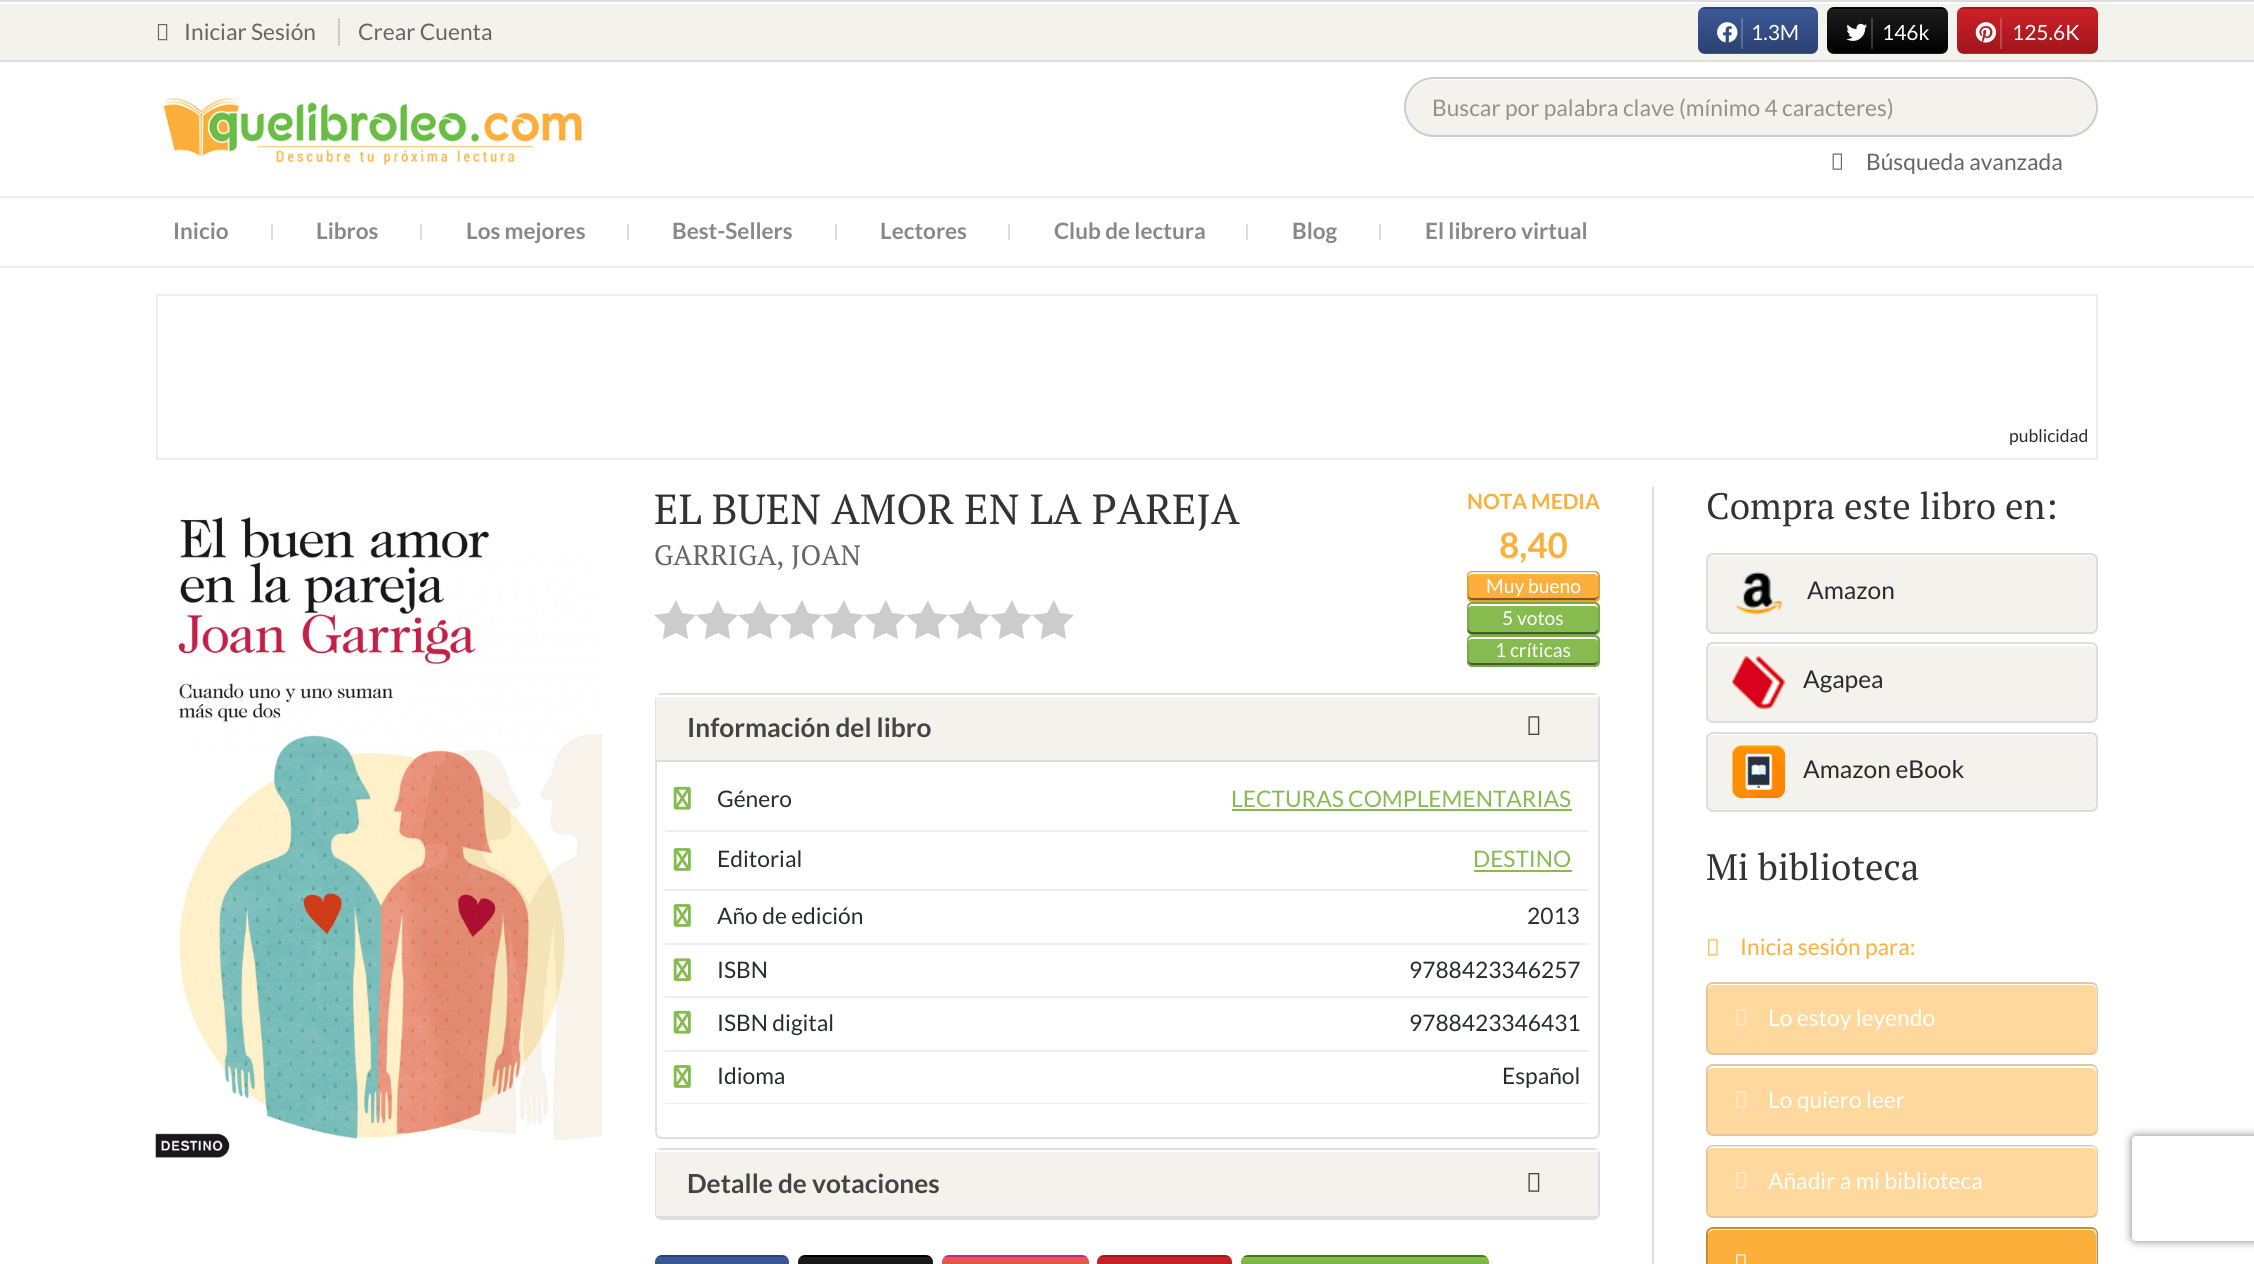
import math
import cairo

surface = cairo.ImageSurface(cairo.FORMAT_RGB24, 2254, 1264)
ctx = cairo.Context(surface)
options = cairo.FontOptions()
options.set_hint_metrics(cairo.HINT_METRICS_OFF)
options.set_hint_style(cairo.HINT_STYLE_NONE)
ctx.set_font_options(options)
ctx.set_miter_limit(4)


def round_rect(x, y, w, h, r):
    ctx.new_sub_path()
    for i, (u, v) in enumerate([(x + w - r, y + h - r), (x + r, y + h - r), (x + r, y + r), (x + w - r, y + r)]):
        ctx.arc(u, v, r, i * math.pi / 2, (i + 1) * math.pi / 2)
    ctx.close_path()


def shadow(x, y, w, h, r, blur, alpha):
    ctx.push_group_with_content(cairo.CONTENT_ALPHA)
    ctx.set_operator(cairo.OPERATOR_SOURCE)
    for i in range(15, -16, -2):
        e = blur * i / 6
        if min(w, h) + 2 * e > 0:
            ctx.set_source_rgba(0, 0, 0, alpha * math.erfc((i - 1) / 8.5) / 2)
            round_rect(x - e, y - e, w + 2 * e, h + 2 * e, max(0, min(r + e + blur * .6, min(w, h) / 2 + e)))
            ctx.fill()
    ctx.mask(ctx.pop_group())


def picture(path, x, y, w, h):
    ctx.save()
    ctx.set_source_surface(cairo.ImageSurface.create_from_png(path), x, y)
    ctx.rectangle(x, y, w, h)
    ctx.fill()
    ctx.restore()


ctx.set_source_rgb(1, 1, 1)
ctx.paint()
ctx.set_source_rgb(0.953, 0.949, 0.929)
ctx.rectangle(0, 4, 2254, 56)
ctx.fill()
ctx.set_source_rgb(0.867, 0.867, 0.867)
ctx.rectangle(0, 0, 2254, 2)
ctx.fill()
ctx.rectangle(0, 60, 2254, 2)
ctx.fill()
ctx.set_source_rgb(0.8, 0.8, 0.8)
ctx.rectangle(338, 18, 2, 28)
ctx.fill()
picture("img1.png", 157, 24, 11, 17)
ctx.select_font_face("Lato")
ctx.set_font_size(22.75)
ctx.set_source_rgb(0.4, 0.4, 0.4)
ctx.move_to(184, 40)
ctx.show_text("Iniciar Sesión")
ctx.move_to(358, 40)
ctx.show_text("Crear Cuenta")
ctx.save()
round_rect(1698, 7, 120, 47, 7)
ctx.clip()
gradient = cairo.LinearGradient(1758, -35, 1758, 9)
gradient.add_color_stop_rgba(0, 0.231, 0.349, 0.596, 1)
gradient.add_color_stop_rgba(1, 0.169, 0.255, 0.439, 1)
ctx.set_source(gradient)
ctx.rectangle(1698, 7, 120, 2)
ctx.fill()
gradient = cairo.LinearGradient(1758, 9, 1758, 53)
gradient.add_color_stop_rgba(0, 0.231, 0.349, 0.596, 1)
gradient.add_color_stop_rgba(1, 0.169, 0.255, 0.439, 1)
ctx.set_source(gradient)
ctx.rectangle(1698, 9, 120, 44)
ctx.fill()
ctx.restore()
gradient = cairo.LinearGradient(1758, 9, 1758, 53)
gradient.add_color_stop_rgba(0, 0.384, 0.478, 0.678, 1)
gradient.add_color_stop_rgba(1, 0.333, 0.404, 0.553, 1)
ctx.set_source(gradient)
ctx.rectangle(1741, 18, 2, 31)
ctx.fill()
ctx.save()
round_rect(1698, 7, 120, 47, 7)
ctx.clip()
gradient = cairo.LinearGradient(1758, 52, 1758, 96)
gradient.add_color_stop_rgba(0, 0.231, 0.349, 0.596, 1)
gradient.add_color_stop_rgba(1, 0.169, 0.255, 0.439, 1)
ctx.set_source(gradient)
ctx.rectangle(1698, 53, 120, 1)
ctx.fill()
ctx.restore()
picture("img2.png", 1717, 22, 21, 21)
ctx.set_font_size(21)
ctx.set_source_rgb(1, 1, 1)
ctx.move_to(1751, 40)
ctx.show_text("1.3M")
ctx.save()
round_rect(1827, 7, 121, 47, 7)
ctx.clip()
gradient = cairo.LinearGradient(1887, -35, 1887, 9)
gradient.add_color_stop_rgba(0, 0.114, 0.114, 0.114, 1)
gradient.add_color_stop_rgba(1, 0, 0, 0, 1)
ctx.set_source(gradient)
ctx.rectangle(1827, 7, 121, 2)
ctx.fill()
gradient = cairo.LinearGradient(1887, 9, 1887, 53)
gradient.add_color_stop_rgba(0, 0.114, 0.114, 0.114, 1)
gradient.add_color_stop_rgba(1, 0, 0, 0, 1)
ctx.set_source(gradient)
ctx.rectangle(1827, 9, 121, 44)
ctx.fill()
ctx.restore()
gradient = cairo.LinearGradient(1887, 9, 1887, 53)
gradient.add_color_stop_rgba(0, 0.29, 0.29, 0.29, 1)
gradient.add_color_stop_rgba(1, 0.2, 0.2, 0.2, 1)
ctx.set_source(gradient)
ctx.rectangle(1871, 18, 2, 31)
ctx.fill()
ctx.save()
round_rect(1827, 7, 121, 47, 7)
ctx.clip()
gradient = cairo.LinearGradient(1887, 52, 1887, 96)
gradient.add_color_stop_rgba(0, 0.114, 0.114, 0.114, 1)
gradient.add_color_stop_rgba(1, 0, 0, 0, 1)
ctx.set_source(gradient)
ctx.rectangle(1827, 53, 121, 1)
ctx.fill()
ctx.restore()
picture("img3.png", 1846, 23, 21, 18)
ctx.set_source_rgb(1, 1, 1)
ctx.move_to(1882, 40)
ctx.show_text("146k")
ctx.save()
round_rect(1957, 7, 141, 47, 7)
ctx.clip()
gradient = cairo.LinearGradient(2027, -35, 2027, 9)
gradient.add_color_stop_rgba(0, 0.796, 0.125, 0.153, 1)
gradient.add_color_stop_rgba(1, 0.627, 0.09, 0.11, 1)
ctx.set_source(gradient)
ctx.rectangle(1957, 7, 141, 2)
ctx.fill()
gradient = cairo.LinearGradient(2027, 9, 2027, 53)
gradient.add_color_stop_rgba(0, 0.796, 0.125, 0.153, 1)
gradient.add_color_stop_rgba(1, 0.627, 0.09, 0.11, 1)
ctx.set_source(gradient)
ctx.rectangle(1957, 9, 141, 44)
ctx.fill()
ctx.restore()
gradient = cairo.LinearGradient(2027, 9, 2027, 53)
gradient.add_color_stop_rgba(0, 0.835, 0.302, 0.322, 1)
gradient.add_color_stop_rgba(1, 0.702, 0.271, 0.286, 1)
ctx.set_source(gradient)
ctx.rectangle(2000, 18, 2, 31)
ctx.fill()
ctx.save()
round_rect(1957, 7, 141, 47, 7)
ctx.clip()
gradient = cairo.LinearGradient(2027, 52, 2027, 96)
gradient.add_color_stop_rgba(0, 0.796, 0.125, 0.153, 1)
gradient.add_color_stop_rgba(1, 0.627, 0.09, 0.11, 1)
ctx.set_source(gradient)
ctx.rectangle(1957, 53, 141, 1)
ctx.fill()
ctx.restore()
picture("img4.png", 1975, 22, 22, 21)
ctx.set_source_rgb(1, 1, 1)
ctx.move_to(2012, 40)
ctx.show_text("125.6K")
picture("img5.png", 163, 98, 419, 68)
ctx.set_source_rgb(0.953, 0.949, 0.929)
round_rect(1404, 77, 694, 60, 30)
ctx.fill()
ctx.set_source_rgb(1, 1, 1)
ctx.new_path()
ctx.move_to(1433, 80)
ctx.line_to(2068, 80)
ctx.curve_to(2084, 80, 2096, 93, 2096, 108)
ctx.curve_to(2096, 114, 2094, 119, 2092, 124)
ctx.curve_to(2095, 119, 2097, 113, 2097, 107)
ctx.curve_to(2097, 92, 2084, 79, 2069, 79)
ctx.line_to(1433, 79)
ctx.curve_to(1418, 79, 1405, 92, 1405, 107)
ctx.line_to(1405, 108)
ctx.curve_to(1405, 93, 1418, 80, 1433, 80)
ctx.close_path()
ctx.fill()
round_rect(1405, 78, 692, 58, 29)
ctx.set_source_rgb(0.8, 0.8, 0.8)
ctx.stroke()
ctx.set_font_size(22.75)
ctx.set_source_rgb(0.573, 0.569, 0.557)
ctx.move_to(1432, 116)
ctx.show_text("Buscar por palabra clave (mínimo 4 caracteres)")
picture("img6.png", 1832, 153, 10, 17)
ctx.set_source_rgb(0.4, 0.4, 0.4)
ctx.move_to(1866, 170)
ctx.show_text("Búsqueda avanzada")
ctx.set_source_rgb(0.933, 0.933, 0.933)
ctx.rectangle(0, 196, 2254, 2)
ctx.fill()
ctx.rectangle(0, 266, 2254, 2)
ctx.fill()
ctx.select_font_face("Lato", cairo.FONT_SLANT_NORMAL, cairo.FONT_WEIGHT_BOLD)
ctx.set_font_size(22.5)
ctx.set_source_rgb(0.533, 0.533, 0.533)
ctx.move_to(173, 239)
ctx.show_text("Inicio")
ctx.set_source_rgb(0.867, 0.867, 0.867)
ctx.rectangle(271, 224, 2, 16)
ctx.fill()
ctx.set_source_rgb(0.533, 0.533, 0.533)
ctx.move_to(316, 239)
ctx.show_text("Libros")
ctx.set_source_rgb(0.867, 0.867, 0.867)
ctx.rectangle(420, 224, 2, 16)
ctx.fill()
ctx.set_source_rgb(0.533, 0.533, 0.533)
ctx.move_to(466, 239)
ctx.show_text("Los mejores")
ctx.set_source_rgb(0.867, 0.867, 0.867)
ctx.rectangle(627, 224, 2, 16)
ctx.fill()
ctx.set_source_rgb(0.533, 0.533, 0.533)
ctx.move_to(672, 239)
ctx.show_text("Best-Sellers")
ctx.set_source_rgb(0.867, 0.867, 0.867)
ctx.rectangle(835, 224, 2, 16)
ctx.fill()
ctx.set_source_rgb(0.533, 0.533, 0.533)
ctx.move_to(880, 239)
ctx.show_text("Lectores")
ctx.set_source_rgb(0.867, 0.867, 0.867)
ctx.rectangle(1008, 224, 2, 16)
ctx.fill()
ctx.set_source_rgb(0.533, 0.533, 0.533)
ctx.move_to(1054, 239)
ctx.show_text("Club de lectura")
ctx.set_source_rgb(0.867, 0.867, 0.867)
ctx.rectangle(1246, 224, 2, 16)
ctx.fill()
ctx.set_source_rgb(0.533, 0.533, 0.533)
ctx.move_to(1292, 239)
ctx.show_text("Blog")
ctx.set_source_rgb(0.867, 0.867, 0.867)
ctx.rectangle(1379, 224, 2, 16)
ctx.fill()
ctx.set_source_rgb(0.533, 0.533, 0.533)
ctx.move_to(1425, 239)
ctx.show_text("El librero virtual")
ctx.rectangle(157, 295, 1940, 164)
ctx.set_source_rgb(0.933, 0.933, 0.933)
ctx.stroke()
ctx.select_font_face("Lato")
ctx.set_font_size(17.5)
ctx.set_source_rgb(0.161, 0.169, 0.173)
ctx.move_to(2009, 442)
ctx.show_text("publicidad")
picture("img7.png", 155, 517, 447, 641)
ctx.select_font_face("PT Serif")
ctx.set_font_size(42)
ctx.set_source_rgb(0.2, 0.2, 0.2)
ctx.move_to(654, 524)
ctx.show_text("EL BUEN AMOR EN LA PAREJA")
ctx.set_font_size(28)
ctx.set_source_rgb(0.4, 0.4, 0.4)
ctx.move_to(654, 565)
ctx.show_text("GARRIGA, JOAN")
ctx.set_source_rgb(0.8, 0.8, 0.8)
ctx.new_path()
ctx.move_to(676, 600)
ctx.line_to(682, 613)
ctx.line_to(696, 615)
ctx.line_to(686, 625)
ctx.line_to(688, 639)
ctx.line_to(676, 633)
ctx.line_to(663, 639)
ctx.line_to(665, 625)
ctx.line_to(654, 615)
ctx.line_to(669, 613)
ctx.close_path()
ctx.fill()
ctx.new_path()
ctx.move_to(718, 600)
ctx.line_to(724, 613)
ctx.line_to(738, 615)
ctx.line_to(728, 625)
ctx.line_to(730, 639)
ctx.line_to(718, 633)
ctx.line_to(705, 639)
ctx.line_to(707, 625)
ctx.line_to(696, 615)
ctx.line_to(711, 613)
ctx.close_path()
ctx.fill()
ctx.new_path()
ctx.move_to(760, 600)
ctx.line_to(766, 613)
ctx.line_to(780, 615)
ctx.line_to(770, 625)
ctx.line_to(772, 639)
ctx.line_to(760, 633)
ctx.line_to(747, 639)
ctx.line_to(749, 625)
ctx.line_to(738, 615)
ctx.line_to(753, 613)
ctx.close_path()
ctx.fill()
ctx.new_path()
ctx.move_to(802, 600)
ctx.line_to(808, 613)
ctx.line_to(822, 615)
ctx.line_to(812, 625)
ctx.line_to(814, 639)
ctx.line_to(802, 633)
ctx.line_to(789, 639)
ctx.line_to(791, 625)
ctx.line_to(780, 615)
ctx.line_to(795, 613)
ctx.close_path()
ctx.fill()
ctx.new_path()
ctx.move_to(844, 600)
ctx.line_to(850, 613)
ctx.line_to(864, 615)
ctx.line_to(854, 625)
ctx.line_to(856, 639)
ctx.line_to(844, 633)
ctx.line_to(831, 639)
ctx.line_to(833, 625)
ctx.line_to(822, 615)
ctx.line_to(837, 613)
ctx.close_path()
ctx.fill()
ctx.new_path()
ctx.move_to(886, 600)
ctx.line_to(892, 613)
ctx.line_to(906, 615)
ctx.line_to(896, 625)
ctx.line_to(898, 639)
ctx.line_to(886, 633)
ctx.line_to(873, 639)
ctx.line_to(875, 625)
ctx.line_to(864, 615)
ctx.line_to(879, 613)
ctx.close_path()
ctx.fill()
ctx.new_path()
ctx.move_to(928, 600)
ctx.line_to(934, 613)
ctx.line_to(948, 615)
ctx.line_to(938, 625)
ctx.line_to(940, 639)
ctx.line_to(928, 633)
ctx.line_to(915, 639)
ctx.line_to(917, 625)
ctx.line_to(906, 615)
ctx.line_to(921, 613)
ctx.close_path()
ctx.fill()
ctx.new_path()
ctx.move_to(970, 600)
ctx.line_to(976, 613)
ctx.line_to(990, 615)
ctx.line_to(980, 625)
ctx.line_to(982, 639)
ctx.line_to(970, 633)
ctx.line_to(957, 639)
ctx.line_to(959, 625)
ctx.line_to(948, 615)
ctx.line_to(963, 613)
ctx.close_path()
ctx.fill()
ctx.new_path()
ctx.move_to(1012, 600)
ctx.line_to(1018, 613)
ctx.line_to(1032, 615)
ctx.line_to(1022, 625)
ctx.line_to(1024, 639)
ctx.line_to(1012, 633)
ctx.line_to(999, 639)
ctx.line_to(1001, 625)
ctx.line_to(990, 615)
ctx.line_to(1005, 613)
ctx.close_path()
ctx.fill()
ctx.new_path()
ctx.move_to(1054, 600)
ctx.line_to(1060, 613)
ctx.line_to(1074, 615)
ctx.line_to(1064, 625)
ctx.line_to(1066, 639)
ctx.line_to(1054, 633)
ctx.line_to(1041, 639)
ctx.line_to(1043, 625)
ctx.line_to(1032, 615)
ctx.line_to(1047, 613)
ctx.close_path()
ctx.fill()
ctx.select_font_face("Lato", cairo.FONT_SLANT_NORMAL, cairo.FONT_WEIGHT_BOLD)
ctx.set_font_size(21)
ctx.set_source_rgb(0.988, 0.69, 0.231)
ctx.move_to(1467, 509)
ctx.show_text("NOTA MEDIA")
ctx.set_font_size(35)
ctx.move_to(1499, 558)
ctx.show_text("8,40")
round_rect(1467, 571, 133, 31, 5)
ctx.fill()
ctx.set_source_rgb(1, 1, 1)
ctx.new_path()
ctx.move_to(1472, 574)
ctx.line_to(1594, 574)
ctx.curve_to(1596, 574, 1598, 576, 1598, 578)
ctx.line_to(1598, 576)
ctx.curve_to(1598, 574, 1596, 572, 1594, 572)
ctx.line_to(1472, 572)
ctx.curve_to(1470, 572, 1468, 574, 1468, 576)
ctx.line_to(1468, 578)
ctx.curve_to(1468, 576, 1470, 574, 1472, 574)
ctx.close_path()
ctx.fill()
ctx.set_source_rgb(0.494, 0.345, 0.118)
ctx.new_path()
ctx.move_to(1468, 595)
ctx.line_to(1468, 596)
ctx.curve_to(1468, 598, 1470, 600, 1472, 600)
ctx.line_to(1594, 600)
ctx.curve_to(1596, 600, 1598, 598, 1598, 596)
ctx.line_to(1598, 595)
ctx.curve_to(1598, 597, 1596, 598, 1594, 598)
ctx.line_to(1472, 598)
ctx.curve_to(1470, 598, 1468, 597, 1468, 595)
ctx.close_path()
ctx.fill()
round_rect(1468, 572, 131, 29, 4)
ctx.set_source_rgba(0, 0, 0, 0.1)
ctx.stroke()
ctx.select_font_face("Lato")
ctx.set_font_size(19.25)
ctx.set_source_rgb(1, 1, 1)
ctx.move_to(1486, 593)
ctx.show_text("Muy bueno")
ctx.set_source_rgb(0.525, 0.733, 0.314)
round_rect(1467, 602, 133, 33, 5)
ctx.fill()
ctx.set_source_rgb(1, 1, 1)
ctx.new_path()
ctx.move_to(1472, 606)
ctx.line_to(1594, 606)
ctx.curve_to(1596, 606, 1598, 607, 1598, 609)
ctx.line_to(1598, 608)
ctx.curve_to(1598, 606, 1596, 604, 1594, 604)
ctx.line_to(1472, 604)
ctx.curve_to(1470, 604, 1468, 606, 1468, 608)
ctx.line_to(1468, 609)
ctx.curve_to(1468, 607, 1470, 606, 1472, 606)
ctx.close_path()
ctx.fill()
ctx.set_source_rgb(0.263, 0.369, 0.157)
ctx.new_path()
ctx.move_to(1468, 628)
ctx.line_to(1468, 630)
ctx.curve_to(1468, 632, 1470, 634, 1472, 634)
ctx.line_to(1594, 634)
ctx.curve_to(1596, 634, 1598, 632, 1598, 630)
ctx.line_to(1598, 628)
ctx.curve_to(1598, 630, 1596, 632, 1594, 632)
ctx.line_to(1472, 632)
ctx.curve_to(1470, 632, 1468, 630, 1468, 628)
ctx.close_path()
ctx.fill()
round_rect(1468, 603, 131, 31, 4)
ctx.set_source_rgba(0, 0, 0, 0.1)
ctx.stroke()
ctx.set_source_rgb(1, 1, 1)
ctx.move_to(1502, 625)
ctx.show_text("5 votos")
ctx.set_source_rgb(0.525, 0.733, 0.314)
round_rect(1467, 635, 133, 32, 5)
ctx.fill()
ctx.set_source_rgb(1, 1, 1)
ctx.new_path()
ctx.move_to(1472, 639)
ctx.line_to(1594, 639)
ctx.curve_to(1596, 639, 1598, 640, 1598, 642)
ctx.line_to(1598, 641)
ctx.curve_to(1598, 639, 1596, 637, 1594, 637)
ctx.line_to(1472, 637)
ctx.curve_to(1470, 637, 1468, 639, 1468, 641)
ctx.line_to(1468, 642)
ctx.curve_to(1468, 640, 1470, 639, 1472, 639)
ctx.close_path()
ctx.fill()
ctx.set_source_rgb(0.263, 0.369, 0.157)
ctx.new_path()
ctx.move_to(1468, 660)
ctx.line_to(1468, 661)
ctx.curve_to(1468, 663, 1470, 665, 1472, 665)
ctx.line_to(1594, 665)
ctx.curve_to(1596, 665, 1598, 663, 1598, 661)
ctx.line_to(1598, 660)
ctx.curve_to(1598, 662, 1596, 663, 1594, 663)
ctx.line_to(1472, 663)
ctx.curve_to(1470, 663, 1468, 662, 1468, 660)
ctx.close_path()
ctx.fill()
round_rect(1468, 636, 131, 30, 4)
ctx.set_source_rgba(0, 0, 0, 0.1)
ctx.stroke()
ctx.set_source_rgb(1, 1, 1)
ctx.move_to(1495, 657)
ctx.show_text("1 críticas")
round_rect(656, 694, 943, 444, 6)
ctx.set_source_rgb(0.875, 0.875, 0.875)
ctx.stroke()
ctx.set_source_rgb(0.953, 0.949, 0.929)
ctx.rectangle(656, 697, 942, 63)
ctx.fill()
ctx.set_source_rgb(1, 1, 1)
ctx.rectangle(656, 695, 942, 2)
ctx.fill()
ctx.set_source_rgb(0.867, 0.867, 0.867)
ctx.rectangle(656, 760, 942, 2)
ctx.fill()
ctx.select_font_face("Lato", cairo.FONT_SLANT_NORMAL, cairo.FONT_WEIGHT_BOLD)
ctx.set_font_size(26.25)
ctx.set_source_rgb(0.267, 0.267, 0.267)
ctx.move_to(687, 737)
ctx.show_text("Información del libro")
picture("img8.png", 1528, 716, 12, 19)
ctx.set_source_rgb(0.933, 0.933, 0.933)
ctx.rectangle(665, 830, 924, 2)
ctx.fill()
picture("img9.png", 673, 786, 18, 24)
ctx.select_font_face("Lato")
ctx.set_font_size(22.75)
ctx.set_source_rgb(0.161, 0.169, 0.173)
ctx.move_to(717, 807)
ctx.show_text("Género")
ctx.set_source_rgb(0.525, 0.733, 0.314)
ctx.move_to(1231, 807)
ctx.show_text("LECTURAS COMPLEMENTARIAS")
ctx.rectangle(1232, 809, 340, 2)
ctx.fill()
ctx.set_source_rgb(0.933, 0.933, 0.933)
ctx.rectangle(665, 889, 924, 2)
ctx.fill()
picture("img10.png", 673, 848, 18, 23)
ctx.set_source_rgb(0.161, 0.169, 0.173)
ctx.move_to(717, 867)
ctx.show_text("Editorial")
ctx.set_source_rgb(0.525, 0.733, 0.314)
ctx.move_to(1473, 867)
ctx.show_text("DESTINO")
ctx.rectangle(1474, 870, 98, 2)
ctx.fill()
ctx.set_source_rgb(0.933, 0.933, 0.933)
ctx.rectangle(665, 943, 924, 2)
ctx.fill()
picture("img10.png", 673, 904, 18, 23)
ctx.set_source_rgb(0.161, 0.169, 0.173)
ctx.move_to(717, 924)
ctx.show_text("Año de edición")
ctx.move_to(1527, 924)
ctx.show_text("2013")
ctx.set_source_rgb(0.933, 0.933, 0.933)
ctx.rectangle(665, 996, 924, 2)
ctx.fill()
picture("img11.png", 673, 958, 18, 24)
ctx.set_source_rgb(0.161, 0.169, 0.173)
ctx.move_to(717, 978)
ctx.show_text("ISBN")
ctx.move_to(1409, 978)
ctx.show_text("9788423346257")
ctx.set_source_rgb(0.933, 0.933, 0.933)
ctx.rectangle(665, 1050, 924, 2)
ctx.fill()
picture("img9.png", 673, 1010, 18, 24)
ctx.set_source_rgb(0.161, 0.169, 0.173)
ctx.move_to(717, 1031)
ctx.show_text("ISBN digital")
ctx.move_to(1409, 1031)
ctx.show_text("9788423346431")
ctx.set_source_rgb(0.933, 0.933, 0.933)
ctx.rectangle(665, 1103, 924, 1)
ctx.fill()
picture("img10.png", 673, 1065, 18, 23)
ctx.set_source_rgb(0.161, 0.169, 0.173)
ctx.move_to(717, 1084)
ctx.show_text("Idioma")
ctx.move_to(1502, 1084)
ctx.show_text("Español")
round_rect(656, 1149, 943, 70, 6)
ctx.set_source_rgb(0.875, 0.875, 0.875)
ctx.stroke()
ctx.set_source_rgb(0.953, 0.949, 0.929)
ctx.rectangle(656, 1152, 942, 64)
ctx.fill()
ctx.set_source_rgb(1, 1, 1)
ctx.rectangle(656, 1150, 942, 2)
ctx.fill()
ctx.set_source_rgb(0.867, 0.867, 0.867)
ctx.rectangle(656, 1216, 942, 2)
ctx.fill()
ctx.select_font_face("Lato", cairo.FONT_SLANT_NORMAL, cairo.FONT_WEIGHT_BOLD)
ctx.set_font_size(26.25)
ctx.set_source_rgb(0.267, 0.267, 0.267)
ctx.move_to(687, 1193)
ctx.show_text("Detalle de votaciones")
picture("img12.png", 1528, 1173, 12, 19)
ctx.save()
round_rect(655, 1255, 134, 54, 7)
ctx.clip()
gradient = cairo.LinearGradient(722, 1206, 722, 1257)
gradient.add_color_stop_rgba(0, 0.231, 0.349, 0.596, 1)
gradient.add_color_stop_rgba(1, 0.169, 0.255, 0.439, 1)
ctx.set_source(gradient)
ctx.rectangle(655, 1255, 134, 2)
ctx.fill()
gradient = cairo.LinearGradient(722, 1257, 722, 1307)
gradient.add_color_stop_rgba(0, 0.231, 0.349, 0.596, 1)
gradient.add_color_stop_rgba(1, 0.169, 0.255, 0.439, 1)
ctx.set_source(gradient)
ctx.rectangle(655, 1257, 134, 7)
ctx.fill()
ctx.restore()
ctx.save()
round_rect(798, 1255, 135, 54, 7)
ctx.clip()
gradient = cairo.LinearGradient(865, 1206, 865, 1257)
gradient.add_color_stop_rgba(0, 0.114, 0.114, 0.114, 1)
gradient.add_color_stop_rgba(1, 0, 0, 0, 1)
ctx.set_source(gradient)
ctx.rectangle(798, 1255, 135, 2)
ctx.fill()
gradient = cairo.LinearGradient(865, 1257, 865, 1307)
gradient.add_color_stop_rgba(0, 0.114, 0.114, 0.114, 1)
gradient.add_color_stop_rgba(1, 0, 0, 0, 1)
ctx.set_source(gradient)
ctx.rectangle(798, 1257, 135, 7)
ctx.fill()
ctx.restore()
ctx.save()
round_rect(942, 1255, 147, 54, 7)
ctx.clip()
gradient = cairo.LinearGradient(1015, 1206, 1015, 1257)
gradient.add_color_stop_rgba(0, 0.914, 0.349, 0.314, 1)
gradient.add_color_stop_rgba(1, 0.737, 0.165, 0.553, 1)
ctx.set_source(gradient)
ctx.rectangle(942, 1255, 147, 2)
ctx.fill()
gradient = cairo.LinearGradient(1015, 1257, 1015, 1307)
gradient.add_color_stop_rgba(0, 0.914, 0.349, 0.314, 1)
gradient.add_color_stop_rgba(1, 0.737, 0.165, 0.553, 1)
ctx.set_source(gradient)
ctx.rectangle(942, 1257, 147, 7)
ctx.fill()
ctx.restore()
ctx.save()
round_rect(1097, 1255, 135, 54, 7)
ctx.clip()
gradient = cairo.LinearGradient(1165, 1206, 1165, 1257)
gradient.add_color_stop_rgba(0, 0.796, 0.125, 0.153, 1)
gradient.add_color_stop_rgba(1, 0.627, 0.09, 0.11, 1)
ctx.set_source(gradient)
ctx.rectangle(1097, 1255, 135, 2)
ctx.fill()
gradient = cairo.LinearGradient(1165, 1257, 1165, 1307)
gradient.add_color_stop_rgba(0, 0.796, 0.125, 0.153, 1)
gradient.add_color_stop_rgba(1, 0.627, 0.09, 0.11, 1)
ctx.set_source(gradient)
ctx.rectangle(1097, 1257, 135, 7)
ctx.fill()
ctx.restore()
ctx.save()
round_rect(1241, 1255, 248, 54, 7)
ctx.clip()
gradient = cairo.LinearGradient(1365, 1206, 1365, 1257)
gradient.add_color_stop_rgba(0, 0.522, 0.733, 0.314, 1)
gradient.add_color_stop_rgba(1, 0.247, 0.482, 0.004, 1)
ctx.set_source(gradient)
ctx.rectangle(1241, 1255, 248, 2)
ctx.fill()
gradient = cairo.LinearGradient(1365, 1257, 1365, 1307)
gradient.add_color_stop_rgba(0, 0.522, 0.733, 0.314, 1)
gradient.add_color_stop_rgba(1, 0.247, 0.482, 0.004, 1)
ctx.set_source(gradient)
ctx.rectangle(1241, 1257, 248, 7)
ctx.fill()
ctx.restore()
ctx.set_source_rgb(0.867, 0.867, 0.867)
ctx.rectangle(1652, 487, 2, 777)
ctx.fill()
ctx.select_font_face("PT Serif")
ctx.set_font_size(36.75)
ctx.set_source_rgb(0.2, 0.2, 0.2)
ctx.move_to(1706, 519)
ctx.show_text("Compra este libro en:")
ctx.set_source_rgb(0.953, 0.949, 0.929)
round_rect(1706, 553, 392, 81, 7)
ctx.fill()
ctx.set_source_rgb(1, 1, 1)
ctx.new_path()
ctx.move_to(1712, 556)
ctx.line_to(2092, 556)
ctx.curve_to(2095, 556, 2096, 558, 2096, 561)
ctx.line_to(2096, 631)
ctx.curve_to(2097, 630, 2097, 629, 2097, 628)
ctx.line_to(2097, 559)
ctx.curve_to(2097, 557, 2095, 555, 2093, 555)
ctx.line_to(1712, 555)
ctx.curve_to(1710, 555, 1708, 557, 1708, 559)
ctx.line_to(1708, 561)
ctx.curve_to(1708, 558, 1710, 556, 1712, 556)
ctx.close_path()
ctx.fill()
round_rect(1707, 554, 390, 79, 6)
ctx.set_source_rgb(0.867, 0.867, 0.867)
ctx.stroke()
picture("img13.png", 1735, 571, 48, 44)
ctx.select_font_face("Lato")
ctx.set_font_size(24.5)
ctx.set_source_rgb(0.161, 0.169, 0.173)
ctx.move_to(1807, 599)
ctx.show_text("Amazon")
ctx.set_source_rgb(0.953, 0.949, 0.929)
round_rect(1706, 642, 392, 81, 7)
ctx.fill()
ctx.set_source_rgb(1, 1, 1)
ctx.new_path()
ctx.move_to(1712, 646)
ctx.line_to(2092, 646)
ctx.curve_to(2095, 646, 2096, 648, 2096, 650)
ctx.line_to(2096, 720)
ctx.curve_to(2097, 719, 2097, 718, 2097, 717)
ctx.line_to(2097, 648)
ctx.curve_to(2097, 646, 2095, 644, 2093, 644)
ctx.line_to(1712, 644)
ctx.curve_to(1710, 644, 1708, 646, 1708, 648)
ctx.line_to(1708, 650)
ctx.curve_to(1708, 648, 1710, 646, 1712, 646)
ctx.close_path()
ctx.fill()
round_rect(1707, 643, 390, 79, 6)
ctx.set_source_rgb(0.867, 0.867, 0.867)
ctx.stroke()
picture("img14.png", 1732, 656, 53, 53)
ctx.set_source_rgb(0.161, 0.169, 0.173)
ctx.move_to(1803, 688)
ctx.show_text("Agapea")
ctx.set_source_rgb(0.953, 0.949, 0.929)
round_rect(1706, 732, 392, 80, 7)
ctx.fill()
ctx.set_source_rgb(1, 1, 1)
ctx.new_path()
ctx.move_to(1712, 735)
ctx.line_to(2092, 735)
ctx.curve_to(2095, 735, 2096, 737, 2096, 739)
ctx.line_to(2096, 809)
ctx.curve_to(2097, 808, 2097, 807, 2097, 806)
ctx.line_to(2097, 737)
ctx.curve_to(2097, 735, 2095, 733, 2093, 733)
ctx.line_to(1712, 733)
ctx.curve_to(1710, 733, 1708, 735, 1708, 737)
ctx.line_to(1708, 739)
ctx.curve_to(1708, 737, 1710, 735, 1712, 735)
ctx.close_path()
ctx.fill()
round_rect(1707, 733, 390, 78, 6)
ctx.set_source_rgb(0.867, 0.867, 0.867)
ctx.stroke()
picture("img15.png", 1732, 745, 53, 53)
ctx.set_source_rgb(0.161, 0.169, 0.173)
ctx.move_to(1803, 778)
ctx.show_text("Amazon eBook")
ctx.select_font_face("PT Serif")
ctx.set_font_size(36.75)
ctx.set_source_rgb(0.2, 0.2, 0.2)
ctx.move_to(1706, 880)
ctx.show_text("Mi biblioteca")
picture("img16.png", 1708, 939, 10, 17)
ctx.select_font_face("Lato")
ctx.set_font_size(22.75)
ctx.set_source_rgb(0.988, 0.69, 0.231)
ctx.move_to(1740, 955)
ctx.show_text("Inicia sesión para:")
ctx.set_source_rgb(0.996, 0.847, 0.616)
round_rect(1706, 982, 392, 73, 7)
ctx.fill()
ctx.set_source_rgb(1, 1, 1)
ctx.new_path()
ctx.move_to(1713, 985)
ctx.line_to(2091, 985)
ctx.curve_to(2094, 985, 2096, 988, 2096, 990)
ctx.line_to(2096, 1050)
ctx.line_to(2095, 1053)
ctx.curve_to(2096, 1052, 2097, 1050, 2097, 1049)
ctx.line_to(2097, 989)
ctx.curve_to(2097, 986, 2095, 984, 2092, 984)
ctx.line_to(1713, 984)
ctx.curve_to(1710, 984, 1708, 986, 1708, 989)
ctx.line_to(1708, 990)
ctx.curve_to(1708, 988, 1710, 985, 1713, 985)
ctx.close_path()
ctx.fill()
round_rect(1707, 983, 390, 71, 6)
ctx.set_source_rgba(0.502, 0.502, 0.502, 0.2)
ctx.stroke()
picture("img17.png", 1736, 1009, 10, 17)
ctx.set_source_rgb(1, 1, 1)
ctx.move_to(1768, 1026)
ctx.show_text("Lo estoy leyendo")
ctx.set_source_rgb(0.996, 0.847, 0.616)
round_rect(1706, 1064, 392, 72, 7)
ctx.fill()
ctx.set_source_rgb(1, 1, 1)
ctx.new_path()
ctx.move_to(1713, 1068)
ctx.line_to(2091, 1068)
ctx.curve_to(2094, 1068, 2096, 1070, 2096, 1073)
ctx.line_to(2096, 1130)
ctx.line_to(2096, 1133)
ctx.curve_to(2096, 1132, 2097, 1130, 2097, 1129)
ctx.line_to(2097, 1071)
ctx.curve_to(2097, 1068, 2095, 1066, 2092, 1066)
ctx.line_to(1713, 1066)
ctx.curve_to(1710, 1066, 1708, 1068, 1708, 1071)
ctx.line_to(1708, 1073)
ctx.curve_to(1708, 1070, 1710, 1068, 1713, 1068)
ctx.close_path()
ctx.fill()
round_rect(1707, 1065, 390, 70, 6)
ctx.set_source_rgba(0.502, 0.502, 0.502, 0.2)
ctx.stroke()
picture("img18.png", 1736, 1091, 10, 17)
ctx.set_source_rgb(1, 1, 1)
ctx.move_to(1768, 1108)
ctx.show_text("Lo quiero leer")
ctx.set_source_rgb(0.996, 0.847, 0.616)
round_rect(1706, 1145, 392, 73, 7)
ctx.fill()
ctx.set_source_rgb(1, 1, 1)
ctx.new_path()
ctx.move_to(1713, 1148)
ctx.line_to(2091, 1148)
ctx.curve_to(2094, 1148, 2096, 1150, 2096, 1153)
ctx.line_to(2096, 1214)
ctx.curve_to(2097, 1213, 2097, 1212, 2097, 1211)
ctx.line_to(2097, 1151)
ctx.curve_to(2097, 1148, 2095, 1146, 2092, 1146)
ctx.line_to(1713, 1146)
ctx.curve_to(1710, 1146, 1708, 1148, 1708, 1151)
ctx.line_to(1708, 1153)
ctx.curve_to(1708, 1150, 1710, 1148, 1713, 1148)
ctx.close_path()
ctx.fill()
round_rect(1707, 1146, 390, 71, 6)
ctx.set_source_rgba(0.502, 0.502, 0.502, 0.2)
ctx.stroke()
picture("img19.png", 1736, 1172, 10, 17)
ctx.set_source_rgb(1, 1, 1)
ctx.move_to(1768, 1189)
ctx.show_text("Añadir a mi biblioteca")
ctx.set_source_rgb(0.988, 0.69, 0.231)
round_rect(1706, 1227, 392, 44, 7)
ctx.fill()
ctx.set_source_rgb(1, 1, 1)
ctx.new_path()
ctx.move_to(1713, 1230)
ctx.line_to(2091, 1230)
ctx.curve_to(2094, 1230, 2096, 1233, 2096, 1236)
ctx.line_to(2096, 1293)
ctx.line_to(2095, 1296)
ctx.curve_to(2096, 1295, 2097, 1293, 2097, 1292)
ctx.line_to(2097, 1234)
ctx.curve_to(2097, 1231, 2095, 1229, 2092, 1229)
ctx.line_to(1713, 1229)
ctx.curve_to(1710, 1229, 1708, 1231, 1708, 1234)
ctx.line_to(1708, 1236)
ctx.curve_to(1708, 1233, 1710, 1230, 1713, 1230)
ctx.close_path()
ctx.fill()
round_rect(1707, 1228, 390, 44, 6)
ctx.set_source_rgba(0, 0, 0, 0.2)
ctx.stroke()
picture("img20.png", 1736, 1254, 10, 10)
ctx.save()
ctx.set_fill_rule(cairo.FILL_RULE_EVEN_ODD)
ctx.new_path()
ctx.move_to(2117, 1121)
ctx.line_to(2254, 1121)
ctx.line_to(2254, 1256)
ctx.line_to(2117, 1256)
ctx.close_path()
ctx.move_to(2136, 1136)
ctx.line_to(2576, 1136)
ctx.curve_to(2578, 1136, 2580, 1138, 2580, 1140)
ctx.line_to(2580, 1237)
ctx.curve_to(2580, 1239, 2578, 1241, 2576, 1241)
ctx.line_to(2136, 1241)
ctx.curve_to(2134, 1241, 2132, 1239, 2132, 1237)
ctx.line_to(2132, 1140)
ctx.curve_to(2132, 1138, 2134, 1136, 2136, 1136)
ctx.close_path()
ctx.clip()
ctx.set_source_rgb(0.502, 0.502, 0.502)
shadow(2132, 1136, 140, 105, 4, 4.5, 1)
ctx.restore()
surface.write_to_png("page.png")
